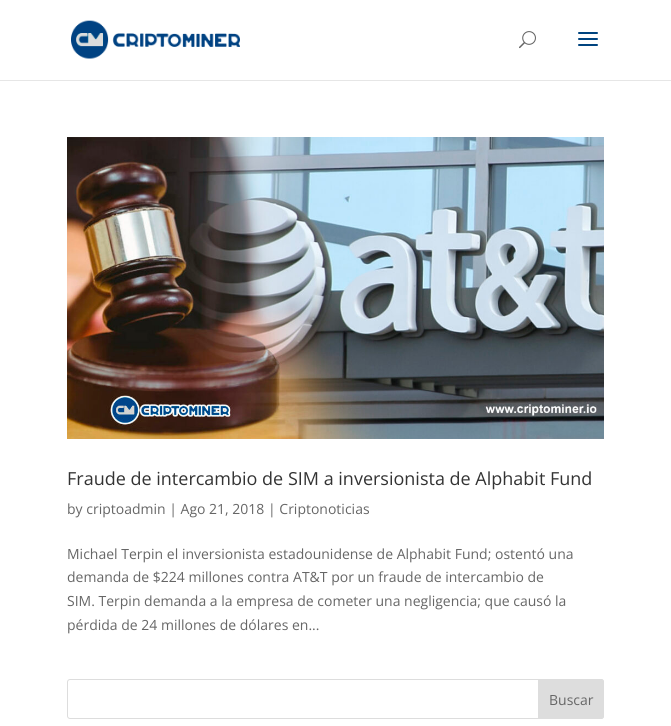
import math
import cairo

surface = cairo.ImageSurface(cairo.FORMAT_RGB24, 671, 726)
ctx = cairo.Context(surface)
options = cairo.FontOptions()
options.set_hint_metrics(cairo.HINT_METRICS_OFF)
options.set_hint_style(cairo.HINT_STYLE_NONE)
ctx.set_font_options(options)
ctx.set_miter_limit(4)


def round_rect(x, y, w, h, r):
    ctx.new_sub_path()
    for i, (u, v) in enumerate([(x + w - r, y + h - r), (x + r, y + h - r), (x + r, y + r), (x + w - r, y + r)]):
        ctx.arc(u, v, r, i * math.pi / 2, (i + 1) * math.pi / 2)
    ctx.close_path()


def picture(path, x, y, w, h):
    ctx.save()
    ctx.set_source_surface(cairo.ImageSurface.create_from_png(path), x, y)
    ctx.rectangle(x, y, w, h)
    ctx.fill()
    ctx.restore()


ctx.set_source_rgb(1, 1, 1)
ctx.paint()
ctx.set_source_rgb(0.902, 0.902, 0.902)
ctx.rectangle(0, 80, 671, 1)
ctx.fill()
picture("img1.png", 71, 20, 169, 39)
picture("img2.png", 519, 31, 17, 18)
picture("img3.png", 578, 32, 20, 14)
picture("img4.png", 67, 137, 537, 302)
ctx.select_font_face("Open Sans")
ctx.set_font_size(18)
ctx.set_source_rgb(0.2, 0.2, 0.2)
ctx.move_to(67, 485)
ctx.show_text("Fraude de intercambio de SIM a inversionista de Alphabit Fund")
ctx.set_font_size(14)
ctx.set_source_rgb(0.4, 0.4, 0.4)
ctx.move_to(67, 514)
ctx.show_text("by criptoadmin | Ago 21, 2018 | Criptonoticias")
ctx.move_to(67, 559)
ctx.show_text("Michael Terpin el inversionista estadounidense de Alphabit Fund; ostentó una")
ctx.move_to(67, 582)
ctx.show_text("demanda de $224 millones contra AT&T por un fraude de intercambio de")
ctx.move_to(67, 606)
ctx.show_text("SIM. Terpin demanda a la empresa de cometer una negligencia; que causó la")
ctx.move_to(67, 630)
ctx.show_text("pérdida de 24 millones de dólares en...")
round_rect(67.5, 679.5, 536, 39, 2.5)
ctx.set_source_rgb(0.867, 0.867, 0.867)
ctx.set_line_width(1)
ctx.stroke()
ctx.new_path()
ctx.move_to(538.5, 679.5)
ctx.line_to(601, 679.5)
ctx.curve_to(602.5, 679.5, 603.5, 680.5, 603.5, 682)
ctx.line_to(603.5, 716)
ctx.curve_to(603.5, 717.5, 602.5, 718.5, 601, 718.5)
ctx.line_to(538.5, 718.5)
ctx.close_path()
ctx.fill_preserve()
ctx.stroke()
ctx.set_source_rgb(0.4, 0.4, 0.4)
ctx.move_to(549, 705)
ctx.show_text("Buscar")
surface.write_to_png("page.png")
